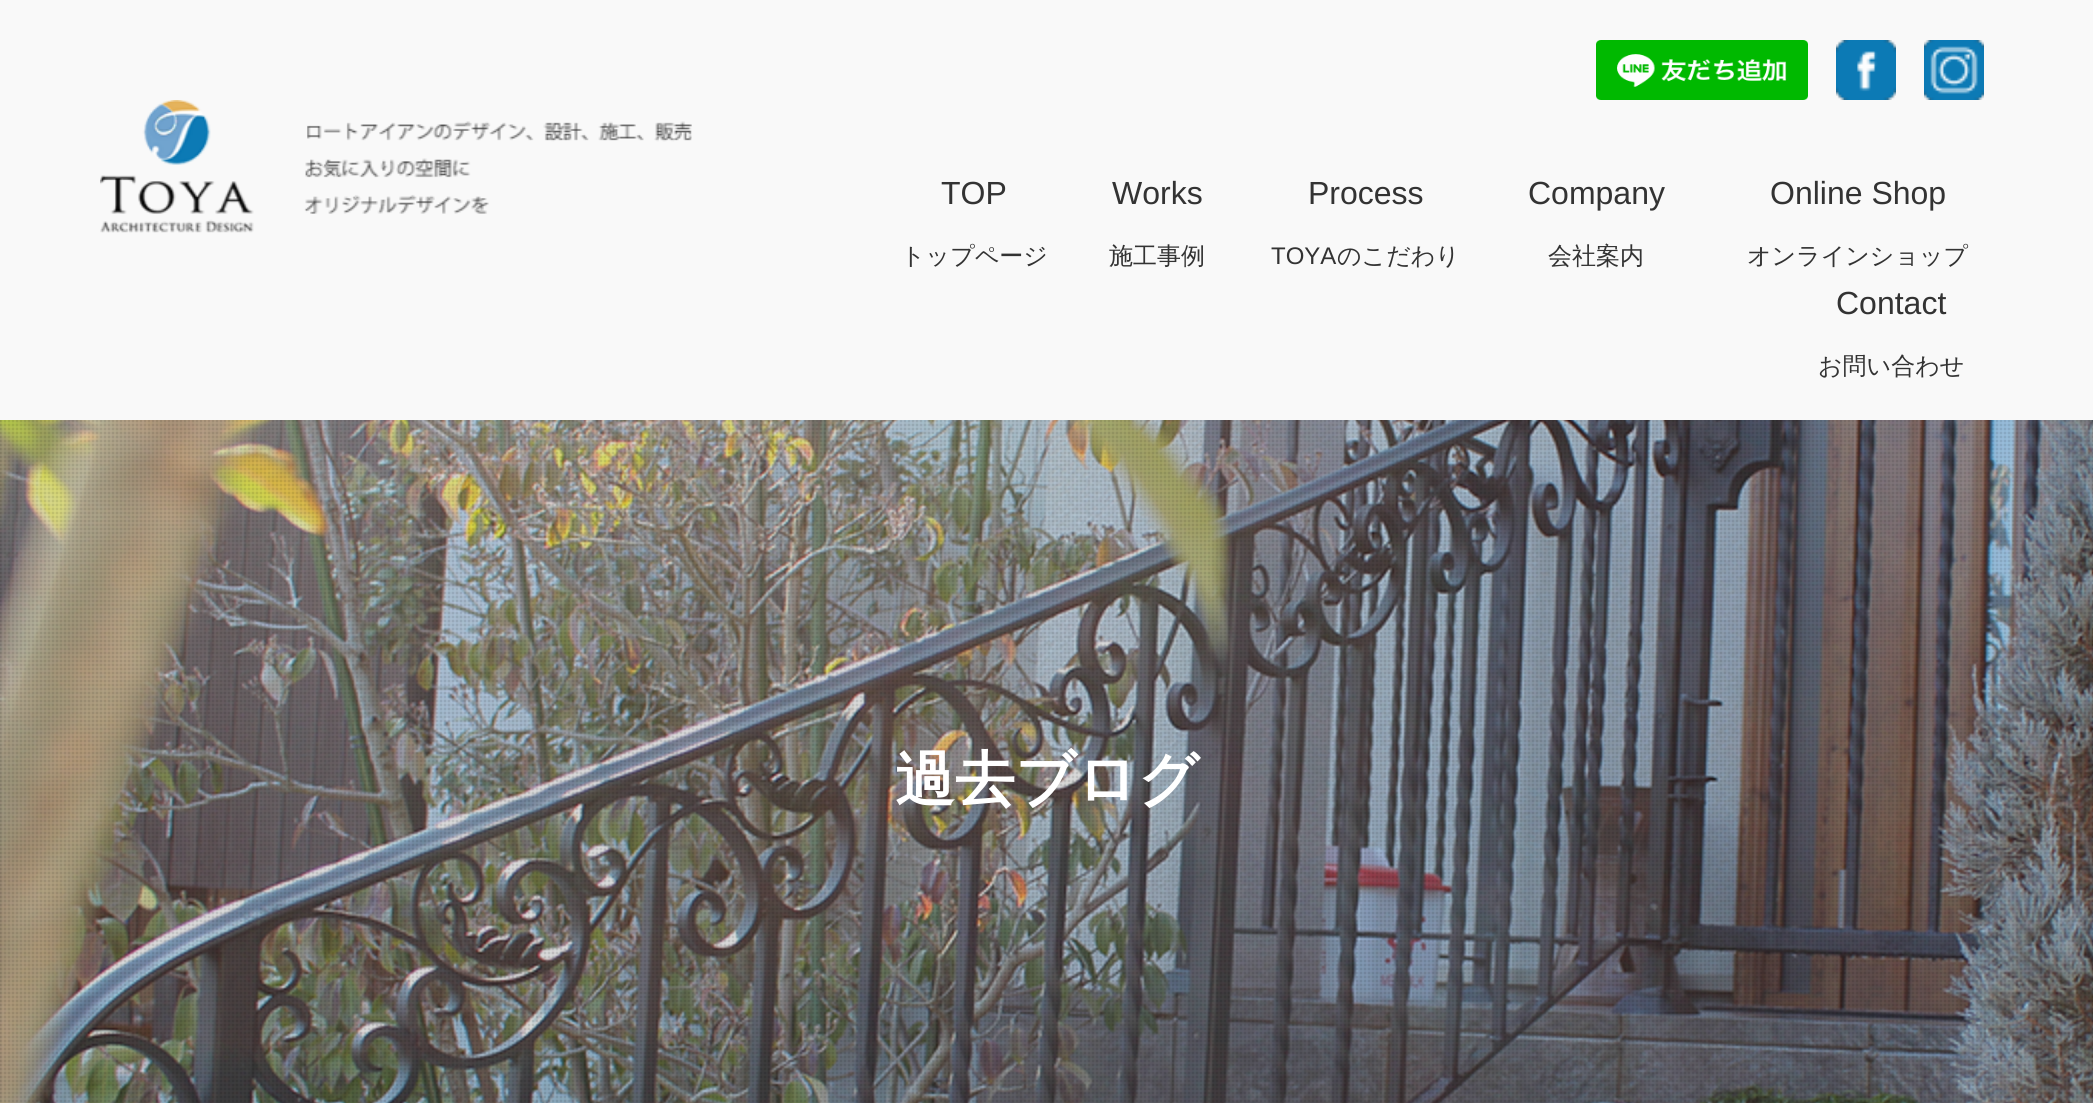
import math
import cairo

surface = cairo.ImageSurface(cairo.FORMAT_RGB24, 2093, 1103)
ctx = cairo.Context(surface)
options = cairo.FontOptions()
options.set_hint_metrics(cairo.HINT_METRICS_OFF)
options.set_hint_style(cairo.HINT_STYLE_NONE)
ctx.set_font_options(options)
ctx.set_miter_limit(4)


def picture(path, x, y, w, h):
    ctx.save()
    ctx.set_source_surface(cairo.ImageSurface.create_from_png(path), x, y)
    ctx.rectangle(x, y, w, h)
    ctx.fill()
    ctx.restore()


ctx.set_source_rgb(1, 1, 1)
ctx.paint()
ctx.set_source_rgb(0.973, 0.973, 0.973)
ctx.rectangle(0, 0, 2093, 420)
ctx.fill()
picture("img1.png", 100, 100, 592, 133)
picture("img2.png", 1596, 40, 212, 60)
picture("img3.png", 1836, 40, 60, 60)
picture("img4.png", 1924, 40, 60, 60)
ctx.select_font_face("Liberation Sans")
ctx.set_font_size(32)
ctx.set_source_rgb(0.2, 0.2, 0.2)
ctx.move_to(941, 204)
ctx.show_text("TOP")
ctx.select_font_face("WenQuanYi Zen Hei Medium")
ctx.set_font_size(24)
ctx.move_to(901, 264)
ctx.show_text("トップページ")
ctx.select_font_face("Liberation Sans")
ctx.set_font_size(32)
ctx.move_to(1112, 204)
ctx.show_text("Works")
ctx.select_font_face("WenQuanYi Zen Hei Medium")
ctx.set_font_size(24)
ctx.move_to(1109, 264)
ctx.show_text("施工事例")
ctx.select_font_face("Liberation Sans")
ctx.set_font_size(32)
ctx.move_to(1308, 204)
ctx.show_text("Process")
ctx.set_font_size(24)
ctx.move_to(1271, 264)
ctx.show_text("TOYA")
ctx.select_font_face("WenQuanYi Zen Hei Medium")
ctx.move_to(1337, 264)
ctx.show_text("のこだわり")
ctx.select_font_face("Liberation Sans")
ctx.set_font_size(32)
ctx.move_to(1528, 204)
ctx.show_text("Company")
ctx.select_font_face("WenQuanYi Zen Hei Medium")
ctx.set_font_size(24)
ctx.move_to(1548, 264)
ctx.show_text("会社案内")
ctx.select_font_face("Liberation Sans")
ctx.set_font_size(32)
ctx.move_to(1770, 204)
ctx.show_text("Online Shop")
ctx.select_font_face("WenQuanYi Zen Hei Medium")
ctx.set_font_size(24)
ctx.move_to(1747, 264)
ctx.show_text("オンラインショップ")
ctx.select_font_face("Liberation Sans")
ctx.set_font_size(32)
ctx.move_to(1836, 314)
ctx.show_text("Contact")
ctx.select_font_face("WenQuanYi Zen Hei Medium")
ctx.set_font_size(24)
ctx.move_to(1818, 374)
ctx.show_text("お問い合わせ")
picture("img5.png", 0, 420, 2093, 683)
ctx.select_font_face("WenQuanYi Zen Hei", cairo.FONT_SLANT_NORMAL, cairo.FONT_WEIGHT_BOLD)
ctx.set_font_size(60)
ctx.set_source_rgb(1, 1, 1)
ctx.move_to(895, 800)
ctx.show_text("過去ブログ")
surface.write_to_png("page.png")
